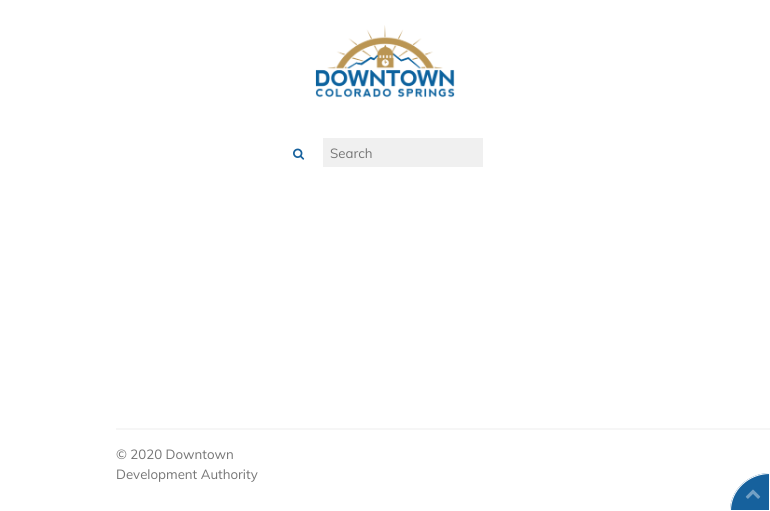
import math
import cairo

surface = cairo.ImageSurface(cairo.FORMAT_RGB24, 770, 511)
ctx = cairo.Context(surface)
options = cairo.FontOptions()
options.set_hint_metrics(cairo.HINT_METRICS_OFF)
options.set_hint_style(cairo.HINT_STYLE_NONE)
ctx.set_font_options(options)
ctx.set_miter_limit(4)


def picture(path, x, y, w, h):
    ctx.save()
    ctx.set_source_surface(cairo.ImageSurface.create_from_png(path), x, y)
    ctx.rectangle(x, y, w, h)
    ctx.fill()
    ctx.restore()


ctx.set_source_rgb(1, 1, 1)
ctx.paint()
picture("img1.png", 315, 25, 140, 73)
picture("img2.png", 293, 148, 12, 12)
ctx.set_source_rgb(0.941, 0.941, 0.941)
ctx.rectangle(323, 138, 160, 29)
ctx.fill()
ctx.select_font_face("Muli")
ctx.set_font_size(13.25)
ctx.set_source_rgb(0.459, 0.459, 0.459)
ctx.move_to(330, 158)
ctx.show_text("Search")
ctx.set_source_rgb(0.961, 0.961, 0.961)
ctx.rectangle(116, 428, 654, 2)
ctx.fill()
ctx.set_source_rgb(0.459, 0.459, 0.459)
ctx.move_to(116, 459)
ctx.show_text("© 2020 Downtown")
ctx.move_to(116, 479)
ctx.show_text("Development Authority")
ctx.set_source_rgb(0.086, 0.38, 0.616)
ctx.new_path()
ctx.move_to(770, 473)
ctx.line_to(770, 511)
ctx.line_to(730, 511)
ctx.curve_to(730, 490, 748, 473, 770, 473)
ctx.close_path()
ctx.fill()
ctx.new_path()
ctx.move_to(770, 473.5)
ctx.line_to(769.5, 473.5)
ctx.line_to(769.5, 510.5)
ctx.line_to(730.5, 510.5)
ctx.line_to(730.5, 511)
ctx.curve_to(730.5, 490.5, 748, 473.5, 770, 473.5)
ctx.close_path()
ctx.set_source_rgb(1, 1, 1)
ctx.set_line_width(1)
ctx.stroke()
picture("img3.png", 745, 489, 16, 10)
surface.write_to_png("page.png")
